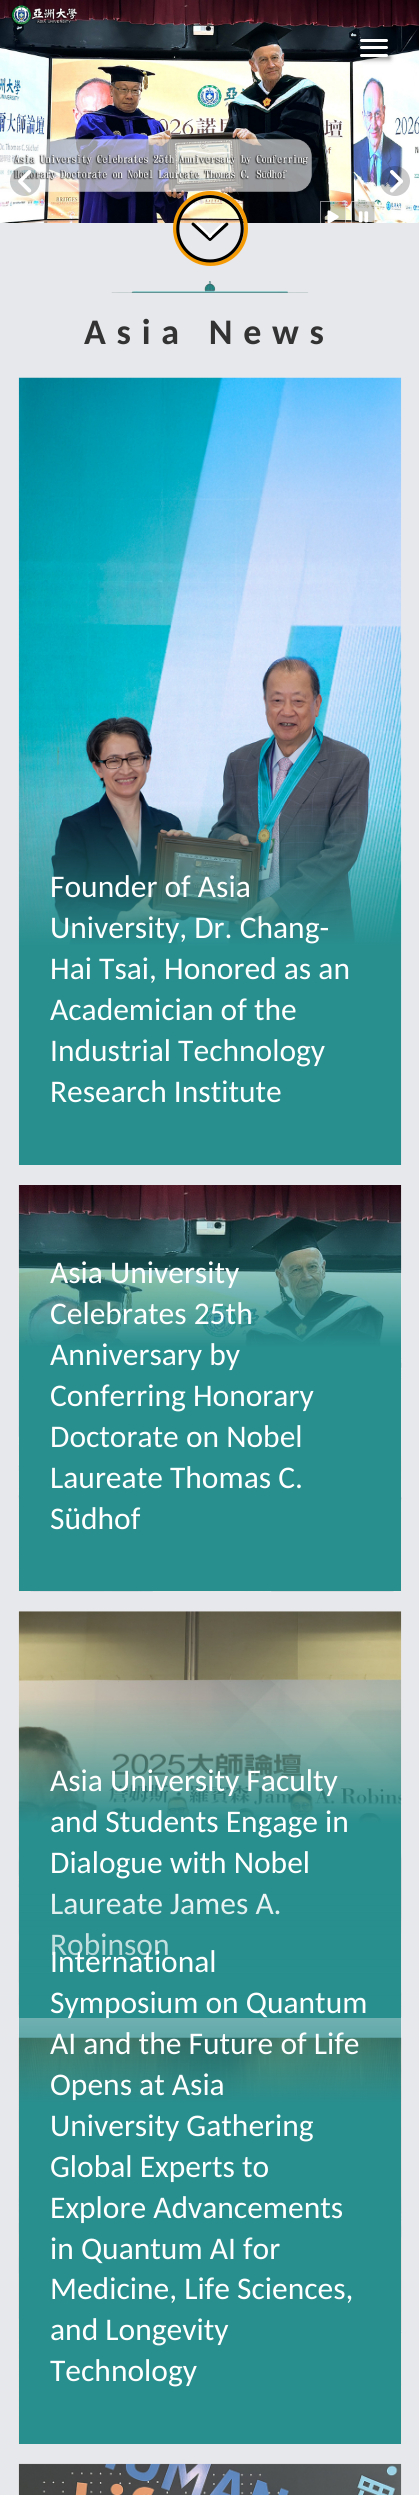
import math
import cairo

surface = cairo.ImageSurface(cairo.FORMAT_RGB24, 419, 2495)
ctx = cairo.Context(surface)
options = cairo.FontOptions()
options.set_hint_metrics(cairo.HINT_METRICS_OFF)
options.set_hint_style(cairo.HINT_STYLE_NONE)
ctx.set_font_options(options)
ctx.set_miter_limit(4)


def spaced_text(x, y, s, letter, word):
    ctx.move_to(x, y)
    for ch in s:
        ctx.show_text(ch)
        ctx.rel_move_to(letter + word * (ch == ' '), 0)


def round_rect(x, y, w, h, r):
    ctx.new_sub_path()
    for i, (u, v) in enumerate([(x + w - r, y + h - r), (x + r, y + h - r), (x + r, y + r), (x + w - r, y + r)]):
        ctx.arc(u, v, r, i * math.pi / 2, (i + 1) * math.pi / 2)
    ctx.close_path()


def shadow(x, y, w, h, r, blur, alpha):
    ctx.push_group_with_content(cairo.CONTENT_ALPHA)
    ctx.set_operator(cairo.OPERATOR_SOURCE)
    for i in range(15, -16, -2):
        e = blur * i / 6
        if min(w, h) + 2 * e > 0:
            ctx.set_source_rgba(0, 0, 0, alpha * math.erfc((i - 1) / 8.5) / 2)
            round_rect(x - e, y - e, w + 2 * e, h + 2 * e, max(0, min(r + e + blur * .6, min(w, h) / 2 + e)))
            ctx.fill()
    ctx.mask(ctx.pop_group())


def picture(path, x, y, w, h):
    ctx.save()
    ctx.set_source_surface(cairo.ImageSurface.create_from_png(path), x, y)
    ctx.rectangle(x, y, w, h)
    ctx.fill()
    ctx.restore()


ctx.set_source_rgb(1, 1, 1)
ctx.paint()
picture("img1.png", 0, 0, 419, 223)
ctx.set_source_rgba(0, 0, 0, 0.2)
ctx.arc(25, 181, 15, 0, 2 * math.pi)
ctx.fill()
picture("img2.png", 18, 170, 14, 23)
ctx.arc(395, 181, 15, 0, 2 * math.pi)
ctx.fill()
picture("img3.png", 390, 170, 13, 23)
ctx.rectangle(320, 201, 26, 22)
ctx.fill()
ctx.rectangle(320.5, 201.5, 25, 31)
ctx.set_source_rgba(1, 1, 1, 0.5)
ctx.set_line_width(1)
ctx.stroke()
picture("img4.png", 327, 210, 12, 13)
ctx.set_source_rgba(0, 0, 0, 0.2)
ctx.rectangle(351, 201, 24, 22)
ctx.fill()
ctx.rectangle(351.5, 201.5, 23, 31)
ctx.set_source_rgba(1, 1, 1, 0.5)
ctx.stroke()
picture("img5.png", 358, 211, 11, 12)
ctx.set_source_rgb(0, 0, 0)
shadow(363, 41, 27, 3, 1.5, 2.5, 0.5)
ctx.set_source_rgb(1, 1, 1)
round_rect(360, 39, 28, 3, 1.5)
ctx.fill()
round_rect(360, 46, 28, 3, 1.5)
ctx.fill()
ctx.set_source_rgb(0, 0, 0)
shadow(363, 56, 27, 3, 1.5, 2.5, 0.5)
ctx.set_source_rgb(1, 1, 1)
round_rect(360, 54, 28, 3, 1.5)
ctx.fill()
ctx.set_source_rgb(0.906, 0.91, 0.918)
ctx.rectangle(0, 223, 419, 2272)
ctx.fill()
ctx.arc(210.5, 228.5, 35.5, 0, 2 * math.pi)
ctx.set_source_rgb(0.957, 0.604, 0.016)
ctx.set_line_width(4)
ctx.stroke()
picture("img6.png", 176, 195, 68, 68)
ctx.set_source_rgb(1, 1, 1)
ctx.new_path()
ctx.move_to(208, 236.5)
ctx.line_to(222.5, 222.5)
ctx.line_to(224, 224)
ctx.line_to(210, 238)
ctx.close_path()
ctx.fill()
ctx.new_path()
ctx.move_to(196, 224)
ctx.line_to(197.5, 222.5)
ctx.line_to(212, 236.5)
ctx.line_to(210, 238)
ctx.close_path()
ctx.fill()
picture("img7.png", 111, 281, 198, 12)
ctx.select_font_face("Carlito", cairo.FONT_SLANT_NORMAL, cairo.FONT_WEIGHT_BOLD)
ctx.set_font_size(36)
ctx.set_source_rgb(0.2, 0.2, 0.2)
spaced_text(84, 344, "Asia News", 10.75, 0)
picture("img8.png", 18, 377, 384, 788)
ctx.select_font_face("Carlito")
ctx.set_font_size(31.5)
ctx.set_source_rgb(1, 1, 1)
ctx.move_to(50, 897)
ctx.show_text("Founder of Asia")
ctx.move_to(50, 938)
ctx.show_text("University, Dr. Chang-")
ctx.move_to(50, 979)
ctx.show_text("Hai Tsai, Honored as an")
ctx.move_to(50, 1020)
ctx.show_text("Academician of the")
ctx.move_to(50, 1061)
ctx.show_text("Industrial Technology")
ctx.move_to(50, 1102)
ctx.show_text("Research Institute")
picture("img9.png", 18, 1185, 384, 407)
ctx.move_to(50, 1283)
ctx.show_text("Asia University")
ctx.move_to(50, 1324)
ctx.show_text("Celebrates 25th")
ctx.move_to(50, 1365)
ctx.show_text("Anniversary by")
ctx.move_to(50, 1406)
ctx.show_text("Conferring Honorary")
ctx.move_to(50, 1447)
ctx.show_text("Doctorate on Nobel")
ctx.move_to(50, 1488)
ctx.show_text("Laureate Thomas C.")
ctx.move_to(50, 1529)
ctx.show_text("Südhof")
picture("img10.png", 18, 1611, 384, 406)
gradient = cairo.LinearGradient(210, 1694, 210, 2018)
gradient.add_color_stop_rgba(0.01, 0.157, 0.557, 0.557, 0)
gradient.add_color_stop_rgba(0.4, 0.157, 0.557, 0.557, 1)
ctx.set_source(gradient)
ctx.rectangle(19, 1700, 382, 318)
ctx.fill()
ctx.set_source_rgb(1, 1, 1)
ctx.move_to(50, 1791)
ctx.show_text("Asia University Faculty")
ctx.move_to(50, 1832)
ctx.show_text("and Students Engage in")
ctx.move_to(50, 1873)
ctx.show_text("Dialogue with Nobel")
ctx.move_to(50, 1914)
ctx.show_text("Laureate James A.")
ctx.move_to(50, 1955)
ctx.show_text("Robinson")
picture("img11.png", 18, 2037, 384, 407)
gradient = cairo.LinearGradient(210, 1875, 210, 2444)
gradient.add_color_stop_rgba(0.01, 0.157, 0.557, 0.557, 0)
gradient.add_color_stop_rgba(0.4, 0.157, 0.557, 0.557, 1)
ctx.set_source(gradient)
ctx.rectangle(19, 1893, 382, 551)
ctx.fill()
ctx.set_source_rgb(1, 1, 1)
ctx.move_to(50, 1972)
ctx.show_text("International")
ctx.move_to(50, 2013)
ctx.show_text("Symposium on Quantum")
ctx.move_to(50, 2054)
ctx.show_text("AI and the Future of Life")
ctx.move_to(50, 2095)
ctx.show_text("Opens at Asia")
ctx.move_to(50, 2136)
ctx.show_text("University Gathering")
ctx.move_to(50, 2177)
ctx.show_text("Global Experts to")
ctx.move_to(50, 2218)
ctx.show_text("Explore Advancements")
ctx.move_to(50, 2259)
ctx.show_text("in Quantum AI for")
ctx.move_to(50, 2299)
ctx.show_text("Medicine, Life Sciences,")
ctx.move_to(50, 2340)
ctx.show_text("and Longevity")
ctx.move_to(50, 2381)
ctx.show_text("Technology")
picture("img12.png", 18, 2463, 384, 32)
surface.write_to_png("page.png")
